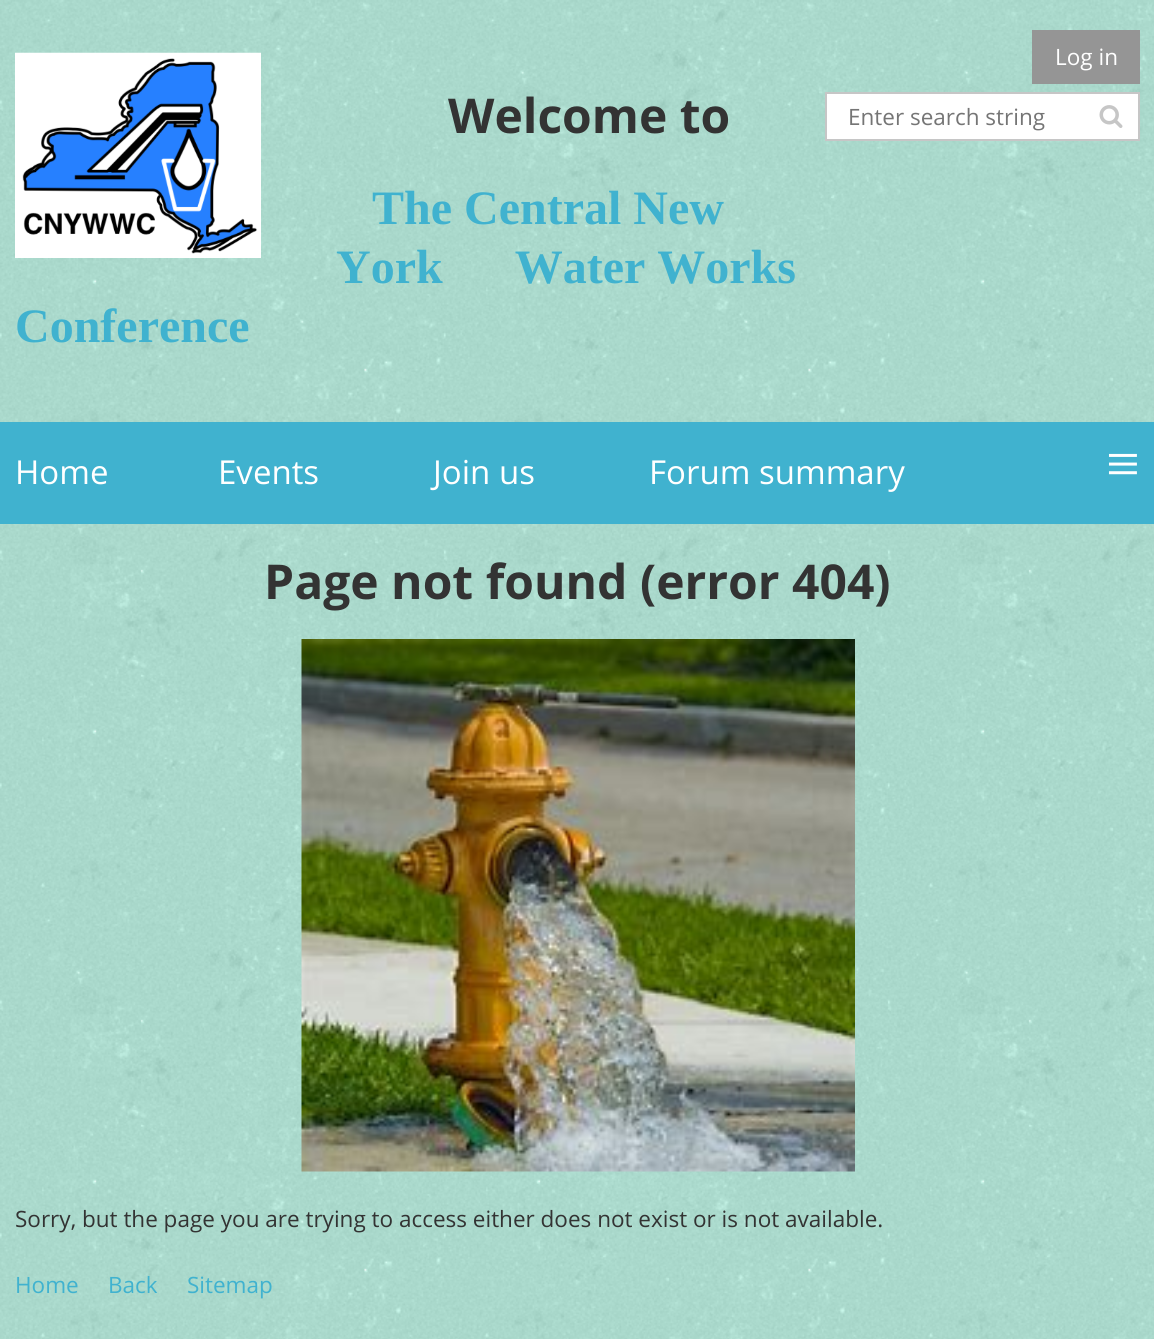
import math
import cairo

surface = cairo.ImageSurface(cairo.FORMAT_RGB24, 1154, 1339)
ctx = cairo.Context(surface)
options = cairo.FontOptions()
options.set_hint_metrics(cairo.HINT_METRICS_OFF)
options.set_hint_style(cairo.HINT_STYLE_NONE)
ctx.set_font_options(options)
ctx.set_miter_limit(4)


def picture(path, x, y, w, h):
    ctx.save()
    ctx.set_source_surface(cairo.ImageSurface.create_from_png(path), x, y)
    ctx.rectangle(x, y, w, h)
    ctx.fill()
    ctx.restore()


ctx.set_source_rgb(1, 1, 1)
ctx.paint()
picture("img1.png", 0, 0, 1154, 1339)
picture("img2.png", 15, 52, 246, 206)
ctx.select_font_face("Open Sans", cairo.FONT_SLANT_NORMAL, cairo.FONT_WEIGHT_BOLD)
ctx.set_font_size(48)
ctx.set_source_rgb(0.2, 0.2, 0.2)
ctx.move_to(448, 133)
ctx.show_text("Welcome to")
ctx.select_font_face("Liberation Serif", cairo.FONT_SLANT_NORMAL, cairo.FONT_WEIGHT_BOLD)
ctx.set_source_rgb(0.251, 0.698, 0.812)
ctx.move_to(372, 224)
ctx.show_text("The Central New")
ctx.move_to(336, 283)
ctx.show_text("York      Water Works")
ctx.move_to(15, 342)
ctx.show_text("Conference")
ctx.set_source_rgb(0.584, 0.584, 0.584)
ctx.rectangle(1032, 30, 108, 54)
ctx.fill()
ctx.select_font_face("Open Sans")
ctx.set_font_size(22.5)
ctx.set_source_rgb(1, 1, 1)
ctx.move_to(1055, 65)
ctx.show_text("Log in")
ctx.rectangle(826, 93, 313, 47)
ctx.fill_preserve()
ctx.set_source_rgb(0.776, 0.776, 0.776)
ctx.stroke()
ctx.set_source_rgb(0.459, 0.459, 0.459)
ctx.move_to(848, 125)
ctx.show_text("Enter search string")
picture("img3.png", 1099, 105, 24, 23)
ctx.set_source_rgb(0.251, 0.698, 0.812)
ctx.rectangle(0, 422, 1154, 102)
ctx.fill()
ctx.set_font_size(33)
ctx.set_source_rgb(1, 1, 1)
ctx.move_to(15, 484)
ctx.show_text("Home")
ctx.move_to(218, 484)
ctx.show_text("Events")
ctx.move_to(433, 484)
ctx.show_text("Join us")
ctx.move_to(649, 484)
ctx.show_text("Forum summary")
ctx.select_font_face("Liberation Serif")
ctx.set_font_size(60)
ctx.move_to(1106, 484)
ctx.show_text("≡")
ctx.select_font_face("Open Sans", cairo.FONT_SLANT_NORMAL, cairo.FONT_WEIGHT_BOLD)
ctx.set_font_size(48)
ctx.set_source_rgb(0.2, 0.2, 0.2)
ctx.move_to(264, 599)
ctx.show_text("Page not found (error 404)")
picture("img4.png", 301, 639, 554, 533)
ctx.select_font_face("Open Sans")
ctx.set_font_size(22.5)
ctx.move_to(15, 1227)
ctx.show_text("Sorry, but the page you are trying to access either does not exist or is not available.")
ctx.set_source_rgb(0.251, 0.698, 0.812)
ctx.move_to(15, 1293)
ctx.show_text("Home")
ctx.move_to(108, 1293)
ctx.show_text("Back")
ctx.move_to(187, 1293)
ctx.show_text("Sitemap")
surface.write_to_png("page.png")
